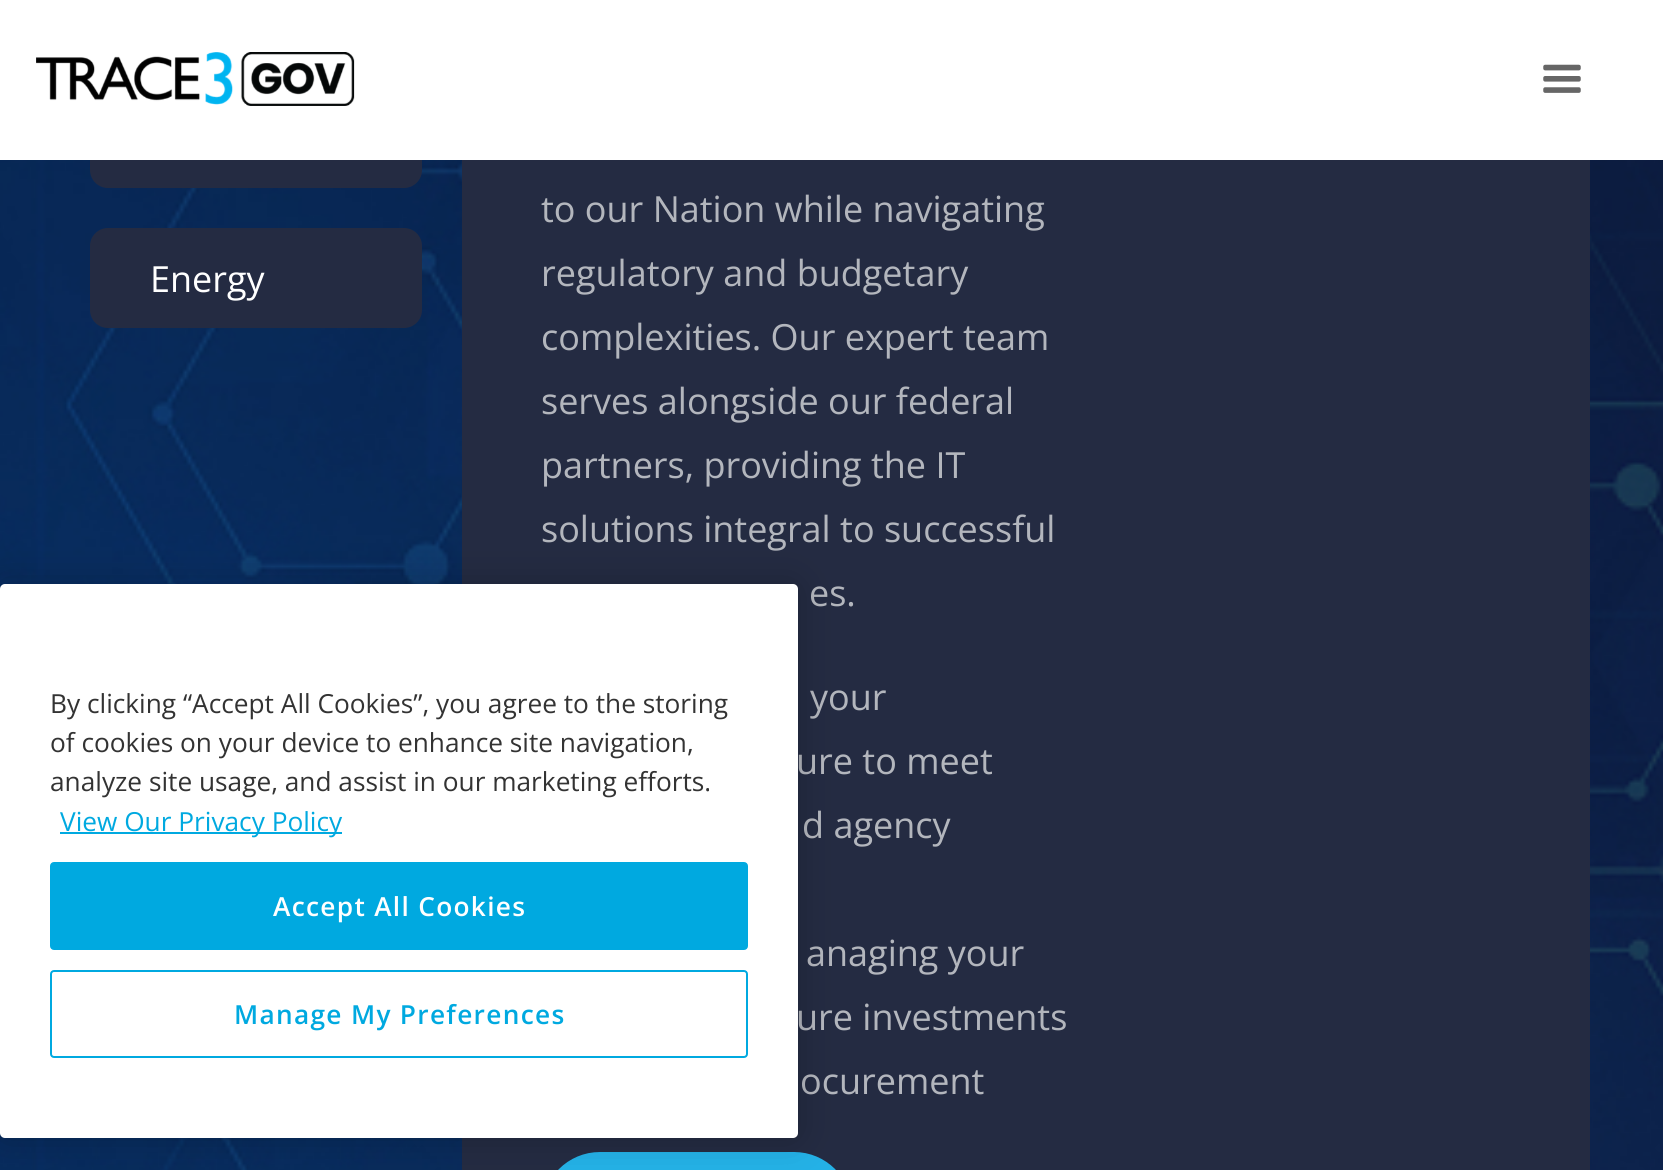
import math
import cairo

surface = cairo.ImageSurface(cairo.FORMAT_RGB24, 1663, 1170)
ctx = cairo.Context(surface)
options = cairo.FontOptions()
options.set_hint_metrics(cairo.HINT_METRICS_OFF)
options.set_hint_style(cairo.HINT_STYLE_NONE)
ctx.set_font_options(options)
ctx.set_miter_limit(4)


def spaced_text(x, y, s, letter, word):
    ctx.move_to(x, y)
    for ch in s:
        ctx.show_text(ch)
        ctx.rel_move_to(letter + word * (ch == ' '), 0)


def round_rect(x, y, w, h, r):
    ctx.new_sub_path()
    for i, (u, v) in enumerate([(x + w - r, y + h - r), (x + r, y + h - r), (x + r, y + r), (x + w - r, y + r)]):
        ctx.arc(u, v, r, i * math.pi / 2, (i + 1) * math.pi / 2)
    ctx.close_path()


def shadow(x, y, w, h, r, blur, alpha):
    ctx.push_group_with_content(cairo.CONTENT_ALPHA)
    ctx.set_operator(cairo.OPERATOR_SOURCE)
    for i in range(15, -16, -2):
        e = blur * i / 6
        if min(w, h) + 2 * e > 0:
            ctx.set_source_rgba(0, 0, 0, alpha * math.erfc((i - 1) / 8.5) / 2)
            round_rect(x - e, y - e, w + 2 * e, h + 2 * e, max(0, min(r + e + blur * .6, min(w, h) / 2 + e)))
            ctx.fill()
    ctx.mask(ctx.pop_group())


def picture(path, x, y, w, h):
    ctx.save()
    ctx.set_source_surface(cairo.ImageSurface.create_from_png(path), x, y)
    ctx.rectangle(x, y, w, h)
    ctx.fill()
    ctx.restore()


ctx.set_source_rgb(1, 1, 1)
ctx.paint()
picture("img3.png", 0, 160, 1663, 1010)
ctx.set_source_rgb(0.141, 0.169, 0.259)
round_rect(90, 88, 332, 100, 18)
ctx.fill()
ctx.set_source_rgb(1, 1, 1)
ctx.rectangle(90, 88, 332, 72)
ctx.fill()
picture("img1.png", 36, 52, 319, 54)
picture("img2.png", 1543, 64, 38, 29)
ctx.set_source_rgb(0.141, 0.169, 0.259)
round_rect(90, 228, 332, 100, 18)
ctx.fill()
ctx.select_font_face("Open Sans")
ctx.set_font_size(36)
ctx.set_source_rgb(1, 1, 1)
ctx.move_to(150, 292)
ctx.show_text("Energy")
ctx.set_source_rgb(0.141, 0.169, 0.259)
ctx.rectangle(462, 160, 1128, 1010)
ctx.fill()
ctx.set_source_rgb(0.702, 0.714, 0.741)
ctx.move_to(541, 222)
ctx.show_text("to our Nation while navigating")
ctx.move_to(541, 286)
ctx.show_text("regulatory and budgetary")
ctx.move_to(541, 350)
ctx.show_text("complexities. Our expert team")
ctx.move_to(541, 414)
ctx.show_text("serves alongside our federal")
ctx.move_to(541, 478)
ctx.show_text("partners, providing the IT")
ctx.move_to(541, 542)
ctx.show_text("solutions integral to successful")
ctx.move_to(809, 606)
ctx.show_text("es.")
ctx.move_to(810, 710)
ctx.show_text("your")
ctx.move_to(796, 774)
ctx.show_text("ure to meet")
ctx.move_to(802, 838)
ctx.show_text("d agency")
ctx.move_to(806, 966)
ctx.show_text("anaging your")
ctx.move_to(796, 1030)
ctx.show_text("ure investments")
ctx.move_to(800, 1094)
ctx.show_text("ocurement")
ctx.set_source_rgb(0.141, 0.694, 0.902)
round_rect(543, 1153, 308, 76, 57)
ctx.fill_preserve()
ctx.stroke()
ctx.set_source_rgb(0, 0, 0)
shadow(0, 584, 798, 554, 5, 18, 0.2)
ctx.set_source_rgb(1, 1, 1)
round_rect(0, 584, 798, 554, 5)
ctx.fill()
ctx.set_font_size(26.25)
ctx.set_source_rgb(0.2, 0.2, 0.2)
ctx.move_to(50, 713)
ctx.show_text("By clicking “Accept All Cookies”, you agree to the storing")
ctx.move_to(50, 752)
ctx.show_text("of cookies on your device to enhance site navigation,")
ctx.move_to(50, 791)
ctx.show_text("analyze site usage, and assist in our marketing efforts.")
ctx.set_source_rgb(0, 0.663, 0.878)
ctx.rectangle(60, 832, 282, 2)
ctx.fill()
ctx.move_to(60, 831)
ctx.show_text("View Our Privacy Policy")
round_rect(51, 863, 696, 86, 3)
ctx.fill_preserve()
ctx.stroke()
ctx.select_font_face("Open Sans SemiBold")
ctx.set_source_rgb(1, 1, 1)
spaced_text(273, 916, "Accept All Cookies", 1.3, 0)
round_rect(51, 971, 696, 86, 3)
ctx.set_source_rgb(0, 0.663, 0.878)
ctx.stroke()
spaced_text(234, 1024, "Manage My Preferences", 1.3, 0)
surface.write_to_png("page.png")
